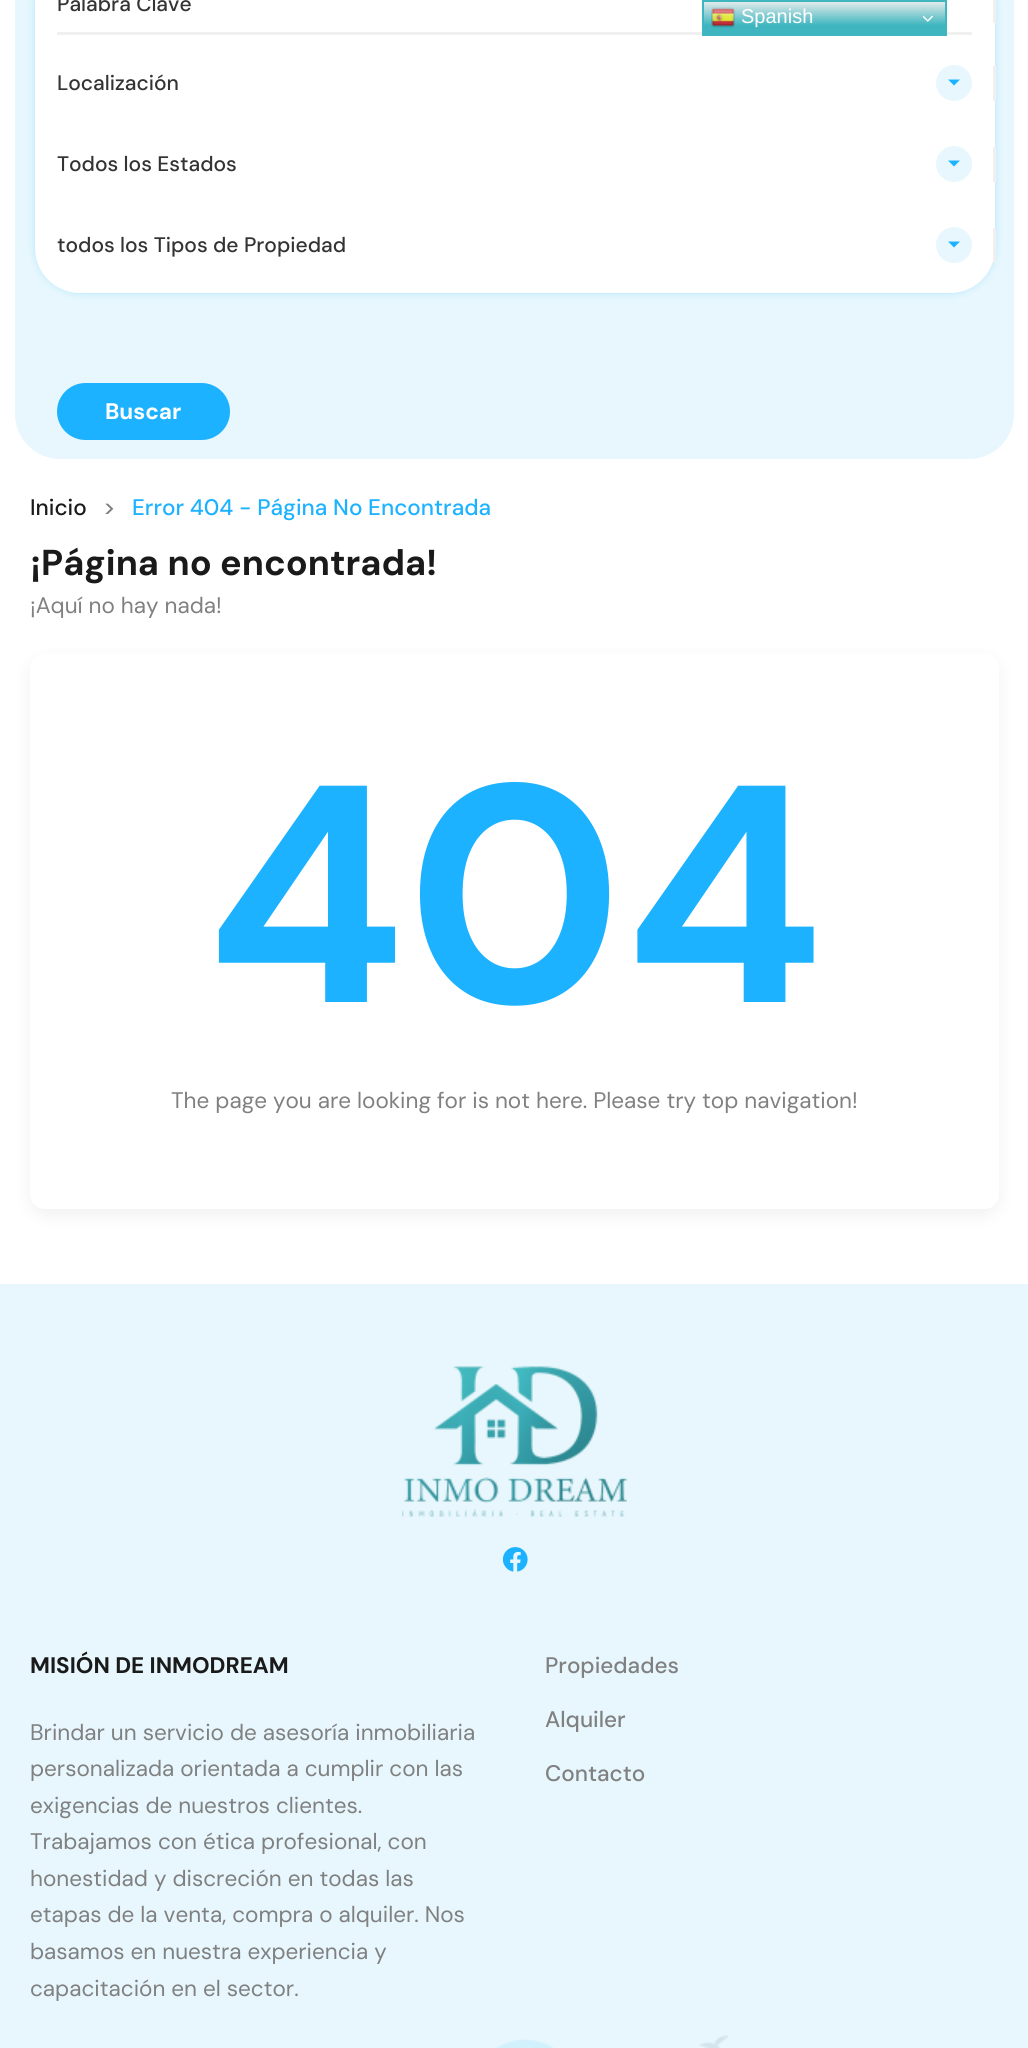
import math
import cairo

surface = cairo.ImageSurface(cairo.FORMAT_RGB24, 1028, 2048)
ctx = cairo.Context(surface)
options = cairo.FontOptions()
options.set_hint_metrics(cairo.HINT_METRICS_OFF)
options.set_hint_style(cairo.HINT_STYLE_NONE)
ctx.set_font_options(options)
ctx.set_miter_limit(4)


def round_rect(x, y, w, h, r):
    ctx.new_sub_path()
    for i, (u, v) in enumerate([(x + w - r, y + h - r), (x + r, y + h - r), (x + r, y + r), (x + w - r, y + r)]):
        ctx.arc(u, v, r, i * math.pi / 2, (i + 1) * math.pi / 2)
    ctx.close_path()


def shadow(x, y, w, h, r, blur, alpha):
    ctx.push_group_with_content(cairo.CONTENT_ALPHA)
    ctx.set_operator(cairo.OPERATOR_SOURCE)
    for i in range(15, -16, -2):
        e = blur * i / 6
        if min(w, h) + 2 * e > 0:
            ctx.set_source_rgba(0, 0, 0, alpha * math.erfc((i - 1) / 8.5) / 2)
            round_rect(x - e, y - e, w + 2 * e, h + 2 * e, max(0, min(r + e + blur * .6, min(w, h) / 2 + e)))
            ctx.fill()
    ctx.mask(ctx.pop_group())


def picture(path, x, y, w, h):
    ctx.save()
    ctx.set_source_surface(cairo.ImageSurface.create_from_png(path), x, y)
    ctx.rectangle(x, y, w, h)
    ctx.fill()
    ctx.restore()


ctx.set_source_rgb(1, 1, 1)
ctx.paint()
ctx.set_source_rgb(0.906, 0.965, 0.992)
round_rect(15, -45, 999, 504, 45)
ctx.fill()
ctx.set_source_rgb(0.114, 0.698, 1)
shadow(38, -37, 954, 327, 42, 5, 0.5)
ctx.set_source_rgb(1, 1, 1)
round_rect(35, -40, 960, 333, 45)
ctx.fill()
ctx.set_source_rgb(0.941, 0.941, 0.941)
ctx.rectangle(57, 32, 915, 3)
ctx.fill()
ctx.select_font_face("DM Sans Medium")
ctx.set_font_size(21)
ctx.set_source_rgb(0.2, 0.2, 0.2)
ctx.move_to(57, 11)
ctx.show_text("Palabra Clave")
ctx.set_source_rgb(0.941, 0.941, 0.941)
ctx.rectangle(993, 0, 3, 23)
ctx.fill()
ctx.set_source_rgb(0.2, 0.2, 0.2)
ctx.move_to(57, 90)
ctx.show_text("Localización")
ctx.set_source_rgb(0.906, 0.965, 0.992)
ctx.new_path()
ctx.arc(954, 83, 18, 0, 2 * math.pi)
ctx.fill()
ctx.set_source_rgb(0.114, 0.698, 1)
ctx.new_path()
ctx.move_to(948, 79.5)
ctx.line_to(960, 79.5)
ctx.line_to(954, 85.5)
ctx.close_path()
ctx.fill()
ctx.set_source_rgb(0.941, 0.941, 0.941)
ctx.rectangle(993, 66, 3, 35)
ctx.fill()
ctx.set_source_rgb(0.2, 0.2, 0.2)
ctx.move_to(57, 171)
ctx.show_text("Todos los Estados")
ctx.set_source_rgb(0.906, 0.965, 0.992)
ctx.new_path()
ctx.arc(954, 164, 18, 0, 2 * math.pi)
ctx.fill()
ctx.set_source_rgb(0.114, 0.698, 1)
ctx.new_path()
ctx.move_to(948, 160.5)
ctx.line_to(960, 160.5)
ctx.line_to(954, 166.5)
ctx.close_path()
ctx.fill()
ctx.set_source_rgb(0.941, 0.941, 0.941)
ctx.rectangle(993, 147, 3, 35)
ctx.fill()
ctx.set_source_rgb(0.2, 0.2, 0.2)
ctx.move_to(57, 252)
ctx.show_text("todos los Tipos de Propiedad")
ctx.set_source_rgb(0.906, 0.965, 0.992)
ctx.new_path()
ctx.arc(954, 245, 18, 0, 2 * math.pi)
ctx.fill()
ctx.set_source_rgb(0.114, 0.698, 1)
ctx.new_path()
ctx.move_to(948, 241.5)
ctx.line_to(960, 241.5)
ctx.line_to(954, 247.5)
ctx.close_path()
ctx.fill()
ctx.set_source_rgb(0.941, 0.941, 0.941)
ctx.rectangle(993, 228, 3, 35)
ctx.fill()
ctx.set_source_rgb(0.114, 0.698, 1)
round_rect(58.5, 384.5, 170, 54, 27)
ctx.fill_preserve()
ctx.set_line_width(3)
ctx.stroke()
ctx.select_font_face("DM Sans", cairo.FONT_SLANT_NORMAL, cairo.FONT_WEIGHT_BOLD)
ctx.set_font_size(22.5)
ctx.set_source_rgb(1, 1, 1)
ctx.move_to(105, 419)
ctx.show_text("Buscar")
ctx.select_font_face("DM Sans Medium")
ctx.set_source_rgb(0.102, 0.102, 0.102)
ctx.move_to(30, 515)
ctx.show_text("Inicio")
ctx.set_source_rgb(0.502, 0.502, 0.502)
ctx.move_to(103, 515)
ctx.show_text(">")
ctx.set_source_rgb(0.114, 0.698, 1)
ctx.move_to(132, 515)
ctx.show_text("Error 404 - Página No Encontrada")
ctx.select_font_face("DM Sans", cairo.FONT_SLANT_NORMAL, cairo.FONT_WEIGHT_BOLD)
ctx.set_font_size(36)
ctx.set_source_rgb(0.102, 0.102, 0.102)
ctx.move_to(30, 575)
ctx.show_text("¡Página no encontrada!")
ctx.select_font_face("DM Sans")
ctx.set_font_size(22.5)
ctx.set_source_rgb(0.502, 0.502, 0.502)
ctx.move_to(30, 613)
ctx.show_text("¡Aquí no hay nada!")
ctx.save()
ctx.set_fill_rule(cairo.FILL_RULE_EVEN_ODD)
ctx.new_path()
ctx.move_to(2, 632)
ctx.line_to(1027, 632)
ctx.line_to(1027, 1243)
ctx.line_to(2, 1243)
ctx.close_path()
ctx.move_to(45, 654)
ctx.line_to(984, 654)
ctx.curve_to(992.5, 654, 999, 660.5, 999, 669)
ctx.line_to(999, 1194)
ctx.curve_to(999, 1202.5, 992.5, 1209, 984, 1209)
ctx.line_to(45, 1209)
ctx.curve_to(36.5, 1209, 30, 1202.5, 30, 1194)
ctx.line_to(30, 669)
ctx.curve_to(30, 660.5, 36.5, 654, 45, 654)
ctx.close_path()
ctx.clip()
ctx.set_source_rgb(0, 0, 0)
shadow(30, 660, 969, 555, 15, 9, 0.06)
ctx.restore()
ctx.select_font_face("DM Sans", cairo.FONT_SLANT_NORMAL, cairo.FONT_WEIGHT_BOLD)
ctx.set_font_size(309)
ctx.set_source_rgb(0.114, 0.698, 1)
ctx.move_to(205, 1002)
ctx.show_text("404")
ctx.select_font_face("DM Sans")
ctx.set_font_size(22.5)
ctx.set_source_rgb(0.502, 0.502, 0.502)
ctx.move_to(171, 1108)
ctx.show_text("The page you are looking for is not here. Please try top navigation!")
ctx.set_source_rgb(0.906, 0.965, 0.992)
ctx.rectangle(0, 1284, 1028, 764)
ctx.fill()
picture("img1.png", 402, 1366, 225, 151)
picture("img2.png", 502, 1547, 26, 25)
ctx.select_font_face("DM Sans", cairo.FONT_SLANT_NORMAL, cairo.FONT_WEIGHT_BOLD)
ctx.set_source_rgb(0.102, 0.102, 0.102)
ctx.move_to(30, 1673)
ctx.show_text("MISIÓN DE INMODREAM")
ctx.select_font_face("DM Sans")
ctx.set_source_rgb(0.502, 0.502, 0.502)
ctx.move_to(30, 1740)
ctx.show_text("Brindar un servicio de asesoría inmobiliaria")
ctx.move_to(30, 1776)
ctx.show_text("personalizada orientada a cumplir con las")
ctx.move_to(30, 1813)
ctx.show_text("exigencias de nuestros clientes.")
ctx.move_to(30, 1849)
ctx.show_text("Trabajamos con ética profesional, con")
ctx.move_to(30, 1886)
ctx.show_text("honestidad y discreción en todas las")
ctx.move_to(30, 1922)
ctx.show_text("etapas de la venta, compra o alquiler. Nos")
ctx.move_to(30, 1959)
ctx.show_text("basamos en nuestra experiencia y")
ctx.move_to(30, 1996)
ctx.show_text("capacitación en el sector.")
ctx.select_font_face("DM Sans Medium")
ctx.move_to(545, 1673)
ctx.show_text("Propiedades")
ctx.move_to(545, 1727)
ctx.show_text("Alquiler")
ctx.move_to(545, 1781)
ctx.show_text("Contacto")
picture("img3.png", 496, 2035, 233, 13)
gradient = cairo.LinearGradient(824, 0, 824, 36)
gradient.add_color_stop_rgba(0, 0.937, 0.937, 0.937, 1)
gradient.add_color_stop_rgba(0.7, 0.247, 0.714, 0.749, 1)
ctx.set_source(gradient)
ctx.rectangle(704, 2, 241, 32)
ctx.fill()
ctx.rectangle(703, 1, 243, 34)
ctx.set_source_rgb(0.247, 0.714, 0.749)
ctx.set_line_width(2)
ctx.stroke()
picture("img4.png", 711, 7, 24, 21)
ctx.select_font_face("Liberation Sans")
ctx.set_font_size(20)
ctx.set_source_rgb(1, 1, 1)
ctx.move_to(741, 23)
ctx.show_text("Spanish")
picture("img5.png", 923, 15, 10, 7)
surface.write_to_png("page.png")
